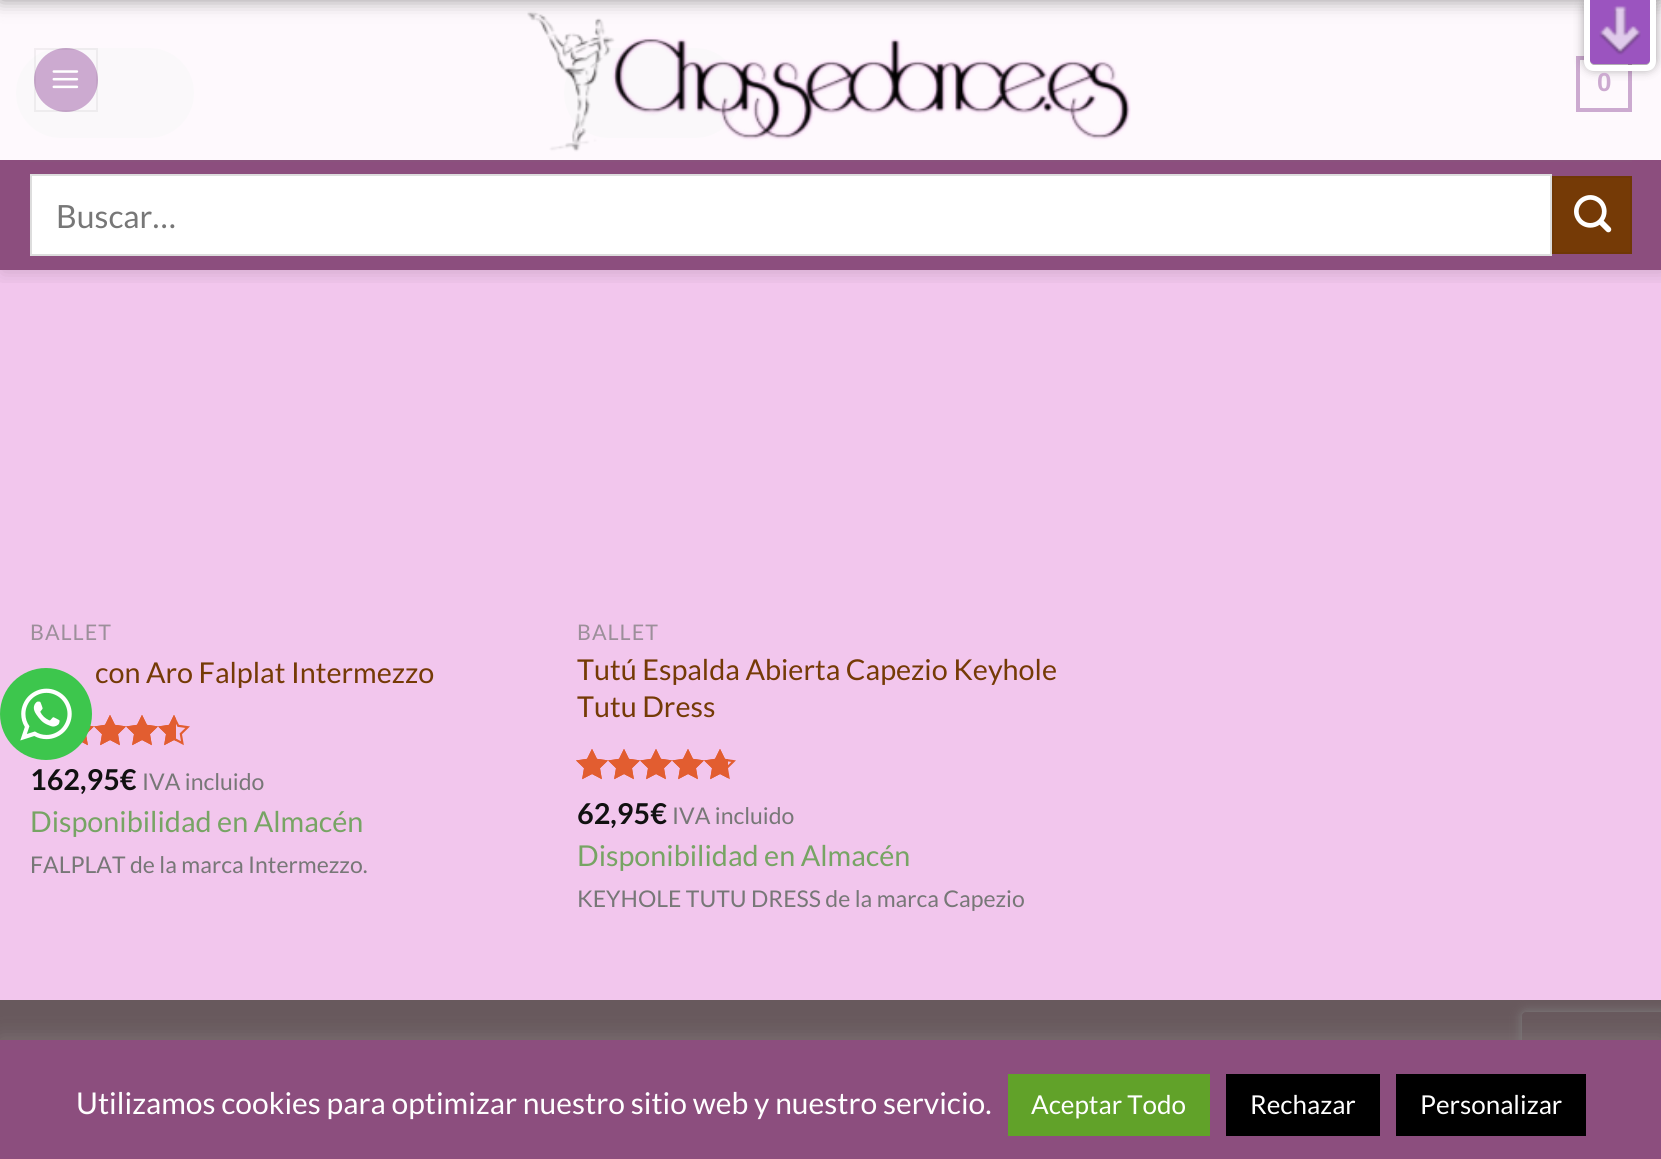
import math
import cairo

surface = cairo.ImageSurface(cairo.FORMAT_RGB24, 1661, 1159)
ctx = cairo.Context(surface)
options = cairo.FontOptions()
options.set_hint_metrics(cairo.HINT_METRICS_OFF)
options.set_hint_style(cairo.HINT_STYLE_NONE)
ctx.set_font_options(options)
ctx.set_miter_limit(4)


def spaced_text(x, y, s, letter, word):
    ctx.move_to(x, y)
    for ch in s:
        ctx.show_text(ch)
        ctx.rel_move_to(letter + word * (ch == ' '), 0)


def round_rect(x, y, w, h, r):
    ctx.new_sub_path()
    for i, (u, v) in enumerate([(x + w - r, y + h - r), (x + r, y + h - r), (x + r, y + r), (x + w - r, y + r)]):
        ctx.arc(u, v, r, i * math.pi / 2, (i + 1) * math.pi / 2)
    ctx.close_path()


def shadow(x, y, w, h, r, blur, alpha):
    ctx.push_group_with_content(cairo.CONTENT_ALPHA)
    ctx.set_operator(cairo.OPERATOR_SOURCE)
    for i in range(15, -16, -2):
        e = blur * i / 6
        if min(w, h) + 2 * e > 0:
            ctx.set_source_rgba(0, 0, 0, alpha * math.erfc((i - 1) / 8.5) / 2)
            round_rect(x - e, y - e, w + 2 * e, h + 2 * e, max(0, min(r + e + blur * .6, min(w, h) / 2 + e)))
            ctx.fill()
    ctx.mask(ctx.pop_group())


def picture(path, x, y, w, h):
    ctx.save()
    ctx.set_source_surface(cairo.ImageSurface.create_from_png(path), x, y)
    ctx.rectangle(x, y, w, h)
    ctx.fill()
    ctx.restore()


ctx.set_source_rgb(0.949, 0.776, 0.929)
ctx.paint()
ctx.set_source_rgb(0.996, 0.976, 0.992)
ctx.rectangle(0, 0, 1661, 160)
ctx.fill()
ctx.set_source_rgb(0.98, 0.969, 0.98)
round_rect(16, 48, 178, 90, 45)
ctx.fill()
round_rect(564, 48, 176, 90, 45)
ctx.fill()
ctx.save()
ctx.rectangle(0, 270, 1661, 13)
ctx.clip()
ctx.set_source_rgb(0, 0, 0)
shadow(2, 2, 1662, 270, 0, 10, 0.15)
ctx.restore()
picture("img3.png", 527, 11, 604, 141)
ctx.set_source_rgb(0, 0, 0)
shadow(0, -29, 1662, 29, 0, 9.5, 0.4)
ctx.rectangle(1578, 58, 52, 52)
ctx.set_source_rgb(0.8, 0.667, 0.816)
ctx.set_line_width(4)
ctx.stroke()
ctx.set_source_rgb(0, 0, 0)
shadow(1584, -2, 72, 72, 10, 5, 0.35)
ctx.set_source_rgb(0.608, 0.329, 0.749)
ctx.new_path()
ctx.move_to(1590, -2)
ctx.line_to(1650, -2)
ctx.line_to(1650, 60)
ctx.curve_to(1650, 62, 1648, 64, 1646, 64)
ctx.line_to(1594, 64)
ctx.curve_to(1592, 64, 1590, 62, 1590, 60)
ctx.close_path()
ctx.fill()
ctx.set_source_rgb(1, 1, 1)
ctx.set_fill_rule(cairo.FILL_RULE_EVEN_ODD)
ctx.new_path()
ctx.move_to(1584, -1)
ctx.line_to(1656, -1)
ctx.line_to(1656, 61)
ctx.curve_to(1656, 67, 1652, 71, 1646, 71)
ctx.line_to(1594, 71)
ctx.curve_to(1588, 71, 1584, 67, 1584, 61)
ctx.close_path()
ctx.move_to(1590, -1)
ctx.line_to(1650, -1)
ctx.line_to(1650, 61)
ctx.curve_to(1650, 63, 1648, 65, 1646, 65)
ctx.line_to(1594, 65)
ctx.curve_to(1592, 65, 1590, 63, 1590, 61)
ctx.close_path()
ctx.fill()
picture("img1.png", 1599, 5, 42, 50)
ctx.set_source_rgb(0.8, 0.667, 0.816)
ctx.arc(66, 80, 32, 0, 2 * math.pi)
ctx.fill()
ctx.rectangle(35, 49, 62, 62)
ctx.set_source_rgba(0, 0, 0, 0.05)
ctx.set_line_width(2)
ctx.stroke()
picture("img2.png", 52, 70, 27, 19)
ctx.select_font_face("Liberation Sans", cairo.FONT_SLANT_NORMAL, cairo.FONT_WEIGHT_BOLD)
ctx.set_font_size(26)
ctx.set_source_rgb(0.8, 0.667, 0.816)
ctx.move_to(1597, 91)
ctx.show_text("0")
ctx.set_source_rgb(0.549, 0.306, 0.494)
ctx.rectangle(0, 160, 1661, 110)
ctx.fill()
ctx.set_source_rgb(0.541, 0.322, 0.49)
ctx.rectangle(30, 160, 1602, 2)
ctx.fill()
ctx.set_source_rgb(1, 1, 1)
ctx.rectangle(31, 175, 1520, 80)
ctx.fill_preserve()
ctx.set_source_rgb(0.867, 0.867, 0.867)
ctx.stroke()
ctx.select_font_face("Lato")
ctx.set_font_size(32)
ctx.set_source_rgb(0.467, 0.467, 0.467)
ctx.move_to(56, 228)
ctx.show_text("Buscar…")
ctx.set_source_rgb(0.459, 0.227, 0.027)
ctx.rectangle(1553, 177, 78, 76)
ctx.fill_preserve()
ctx.set_source_rgb(0.435, 0.216, 0.027)
ctx.stroke()
picture("img4.png", 1574, 195, 38, 38)
ctx.set_font_size(21.5)
ctx.set_source_rgb(0.612, 0.561, 0.604)
spaced_text(30, 640, "BALLET", 1, 0)
ctx.set_font_size(28.75)
ctx.set_source_rgb(0.459, 0.227, 0.027)
ctx.move_to(95, 683)
ctx.show_text("con Aro Falplat Intermezzo")
picture("img5.png", 82, 715, 108, 31)
picture("img6.png", 82, 715, 94, 31)
ctx.select_font_face("Lato", cairo.FONT_SLANT_NORMAL, cairo.FONT_WEIGHT_BOLD)
ctx.set_source_rgb(0.067, 0.067, 0.067)
ctx.move_to(30, 790)
ctx.show_text("162,95€")
ctx.select_font_face("Lato")
ctx.set_font_size(23)
ctx.set_source_rgb(0.467, 0.467, 0.467)
ctx.move_to(142, 790)
ctx.show_text("IVA incluido")
ctx.set_font_size(28.75)
ctx.set_source_rgb(0.467, 0.643, 0.392)
ctx.move_to(30, 832)
ctx.show_text("Disponibilidad en Almacén")
ctx.set_font_size(23)
ctx.set_source_rgb(0.467, 0.467, 0.467)
ctx.move_to(30, 873)
ctx.show_text("FALPLAT de la marca Intermezzo.")
ctx.set_font_size(21.5)
ctx.set_source_rgb(0.612, 0.561, 0.604)
spaced_text(577, 640, "BALLET", 1, 0)
ctx.set_font_size(28.75)
ctx.set_source_rgb(0.459, 0.227, 0.027)
ctx.move_to(577, 680)
ctx.show_text("Tutú Espalda Abierta Capezio Keyhole")
ctx.move_to(577, 717)
ctx.show_text("Tutu Dress")
picture("img7.png", 576, 749, 160, 31)
picture("img8.png", 576, 749, 152, 31)
ctx.select_font_face("Lato", cairo.FONT_SLANT_NORMAL, cairo.FONT_WEIGHT_BOLD)
ctx.set_source_rgb(0.067, 0.067, 0.067)
ctx.move_to(577, 824)
ctx.show_text("62,95€")
ctx.select_font_face("Lato")
ctx.set_font_size(23)
ctx.set_source_rgb(0.467, 0.467, 0.467)
ctx.move_to(672, 824)
ctx.show_text("IVA incluido")
ctx.set_font_size(28.75)
ctx.set_source_rgb(0.467, 0.643, 0.392)
ctx.move_to(577, 866)
ctx.show_text("Disponibilidad en Almacén")
ctx.set_font_size(23)
ctx.set_source_rgb(0.467, 0.467, 0.467)
ctx.move_to(577, 907)
ctx.show_text("KEYHOLE TUTU DRESS de la marca Capezio")
ctx.set_source_rgb(0.408, 0.349, 0.365)
ctx.rectangle(0, 1000, 1661, 40)
ctx.fill()
ctx.set_source_rgb(0.239, 0.776, 0.302)
ctx.arc(46, 714, 46, 0, 2 * math.pi)
ctx.fill()
picture("img9.png", 20, 688, 52, 53)
ctx.set_source_rgb(0.675, 0.671, 0.671)
shadow(0, 1038, 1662, 120, 0, 10, 0.3)
ctx.save()
ctx.new_path()
ctx.move_to(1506, 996)
ctx.line_to(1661, 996)
ctx.line_to(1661, 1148)
ctx.line_to(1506, 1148)
ctx.close_path()
ctx.move_to(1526, 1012)
ctx.line_to(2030, 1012)
ctx.curve_to(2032, 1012, 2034, 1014, 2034, 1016)
ctx.line_to(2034, 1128)
ctx.curve_to(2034, 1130, 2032, 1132, 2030, 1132)
ctx.line_to(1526, 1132)
ctx.curve_to(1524, 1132, 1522, 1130, 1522, 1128)
ctx.line_to(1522, 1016)
ctx.curve_to(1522, 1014, 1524, 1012, 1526, 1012)
ctx.close_path()
ctx.clip()
ctx.set_source_rgb(0.502, 0.502, 0.502)
shadow(1522, 1012, 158, 120, 4, 5, 1)
ctx.restore()
ctx.set_source_rgb(0.549, 0.306, 0.494)
ctx.rectangle(0, 1040, 1661, 119)
ctx.fill()
ctx.set_font_size(30)
ctx.set_source_rgb(1, 1, 1)
ctx.move_to(76, 1114)
ctx.show_text("Utilizamos cookies para optimizar nuestro sitio web y nuestro servicio.")
ctx.set_source_rgb(0.38, 0.635, 0.161)
ctx.rectangle(1008, 1074, 202, 62)
ctx.fill()
ctx.set_font_size(26)
ctx.set_source_rgb(1, 1, 1)
ctx.move_to(1031, 1114)
ctx.show_text("Aceptar Todo")
ctx.set_source_rgb(0, 0, 0)
ctx.rectangle(1226, 1074, 154, 62)
ctx.fill()
ctx.set_source_rgb(1, 1, 1)
ctx.move_to(1250, 1114)
ctx.show_text("Rechazar")
ctx.set_source_rgb(0, 0, 0)
ctx.rectangle(1396, 1074, 190, 62)
ctx.fill()
ctx.set_source_rgb(1, 1, 1)
ctx.move_to(1420, 1114)
ctx.show_text("Personalizar")
surface.write_to_png("page.png")
